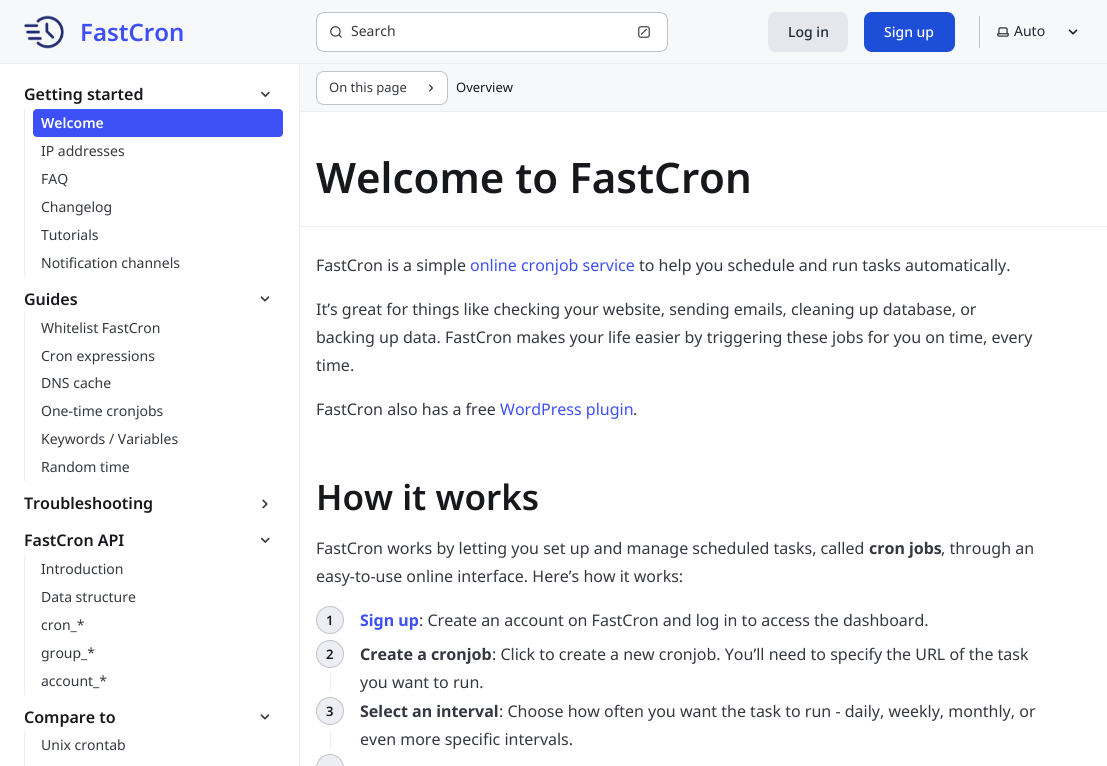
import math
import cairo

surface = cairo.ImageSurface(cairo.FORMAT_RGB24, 1107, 766)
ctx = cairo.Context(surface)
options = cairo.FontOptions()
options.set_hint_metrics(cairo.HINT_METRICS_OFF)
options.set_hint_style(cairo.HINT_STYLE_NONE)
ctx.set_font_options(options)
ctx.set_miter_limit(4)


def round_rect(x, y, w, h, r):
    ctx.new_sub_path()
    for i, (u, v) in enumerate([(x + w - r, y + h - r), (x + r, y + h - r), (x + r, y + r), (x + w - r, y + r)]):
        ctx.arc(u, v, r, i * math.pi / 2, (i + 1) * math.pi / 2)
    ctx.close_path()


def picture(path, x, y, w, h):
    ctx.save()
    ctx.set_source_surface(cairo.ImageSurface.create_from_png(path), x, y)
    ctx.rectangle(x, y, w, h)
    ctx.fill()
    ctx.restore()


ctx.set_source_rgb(1, 1, 1)
ctx.paint()
ctx.set_source_rgb(0.965, 0.969, 0.976)
ctx.rectangle(0, 0, 1107, 63)
ctx.fill()
ctx.set_source_rgb(0.929, 0.933, 0.953)
ctx.rectangle(0, 63, 1107, 1)
ctx.fill()
picture("img1.png", 24, 15, 40, 34)
ctx.select_font_face("Noto Sans SemiBold")
ctx.set_font_size(24)
ctx.set_source_rgb(0.239, 0.314, 0.961)
ctx.move_to(80, 41)
ctx.show_text("FastCron")
ctx.set_source_rgb(1, 1, 1)
round_rect(316.5, 12.5, 351, 39, 7.5)
ctx.fill_preserve()
ctx.set_source_rgb(0.757, 0.765, 0.784)
ctx.set_line_width(1)
ctx.stroke()
picture("img2.png", 330, 26, 12, 12)
ctx.select_font_face("Noto Sans")
ctx.set_font_size(14)
ctx.set_source_rgb(0.208, 0.22, 0.255)
ctx.move_to(351, 36)
ctx.show_text("Search")
picture("img3.png", 638, 26, 12, 12)
ctx.set_source_rgb(0.898, 0.906, 0.922)
round_rect(768, 12, 80, 40, 8)
ctx.fill()
ctx.select_font_face("Noto Sans Medium")
ctx.set_source_rgb(0.122, 0.161, 0.216)
ctx.move_to(788, 37)
ctx.show_text("Log in")
ctx.set_source_rgb(0.114, 0.306, 0.847)
round_rect(864, 12, 91, 40, 8)
ctx.fill()
ctx.set_source_rgb(1, 1, 1)
ctx.move_to(884, 37)
ctx.show_text("Sign up")
ctx.set_source_rgb(0.757, 0.765, 0.784)
ctx.rectangle(979, 16, 1, 32)
ctx.fill()
picture("img4.png", 997, 27, 12, 10)
ctx.select_font_face("Noto Sans")
ctx.set_source_rgb(0.137, 0.149, 0.184)
ctx.move_to(1014, 36)
ctx.show_text("Auto")
picture("img5.png", 1068, 29, 10, 6)
ctx.set_source_rgb(0.929, 0.933, 0.953)
ctx.rectangle(299, 64, 1, 702)
ctx.fill()
ctx.select_font_face("Noto Sans SemiBold")
ctx.set_font_size(16)
ctx.set_source_rgb(0.09, 0.094, 0.11)
ctx.move_to(24, 100)
ctx.show_text("Getting started")
picture("img6.png", 261, 91, 9, 6)
ctx.set_source_rgb(0.929, 0.933, 0.953)
ctx.rectangle(24, 109, 1, 168)
ctx.fill()
ctx.set_source_rgb(0.239, 0.314, 0.961)
round_rect(33, 109, 250, 28, 4)
ctx.fill()
ctx.set_font_size(14)
ctx.set_source_rgb(1, 1, 1)
ctx.move_to(41, 128)
ctx.show_text("Welcome")
ctx.select_font_face("Noto Sans")
ctx.set_source_rgb(0.208, 0.22, 0.255)
ctx.move_to(41, 156)
ctx.show_text("IP addresses")
ctx.move_to(41, 184)
ctx.show_text("FAQ")
ctx.move_to(41, 212)
ctx.show_text("Changelog")
ctx.move_to(41, 240)
ctx.show_text("Tutorials")
ctx.move_to(41, 268)
ctx.show_text("Notification channels")
ctx.select_font_face("Noto Sans SemiBold")
ctx.set_font_size(16)
ctx.set_source_rgb(0.09, 0.094, 0.11)
ctx.move_to(24, 305)
ctx.show_text("Guides")
picture("img7.png", 260, 296, 10, 6)
ctx.set_source_rgb(0.929, 0.933, 0.953)
ctx.rectangle(24, 313, 1, 168)
ctx.fill()
ctx.select_font_face("Noto Sans")
ctx.set_font_size(14)
ctx.set_source_rgb(0.208, 0.22, 0.255)
ctx.move_to(41, 333)
ctx.show_text("Whitelist FastCron")
ctx.move_to(41, 361)
ctx.show_text("Cron expressions")
ctx.move_to(41, 388)
ctx.show_text("DNS cache")
ctx.move_to(41, 416)
ctx.show_text("One-time cronjobs")
ctx.move_to(41, 444)
ctx.show_text("Keywords / Variables")
ctx.move_to(41, 472)
ctx.show_text("Random time")
ctx.select_font_face("Noto Sans SemiBold")
ctx.set_font_size(16)
ctx.set_source_rgb(0.09, 0.094, 0.11)
ctx.move_to(24, 509)
ctx.show_text("Troubleshooting")
picture("img8.png", 262, 499, 6, 10)
ctx.move_to(24, 546)
ctx.show_text("FastCron API")
picture("img9.png", 261, 537, 9, 6)
ctx.set_source_rgb(0.929, 0.933, 0.953)
ctx.rectangle(24, 555, 1, 140)
ctx.fill()
ctx.select_font_face("Noto Sans")
ctx.set_font_size(14)
ctx.set_source_rgb(0.208, 0.22, 0.255)
ctx.move_to(41, 574)
ctx.show_text("Introduction")
ctx.move_to(41, 602)
ctx.show_text("Data structure")
ctx.move_to(41, 630)
ctx.show_text("cron_*")
ctx.move_to(41, 658)
ctx.show_text("group_*")
ctx.move_to(41, 686)
ctx.show_text("account_*")
ctx.select_font_face("Noto Sans SemiBold")
ctx.set_font_size(16)
ctx.set_source_rgb(0.09, 0.094, 0.11)
ctx.move_to(24, 723)
ctx.show_text("Compare to")
picture("img10.png", 260, 714, 10, 6)
ctx.set_source_rgb(0.929, 0.933, 0.953)
ctx.rectangle(24, 731, 1, 35)
ctx.fill()
ctx.select_font_face("Noto Sans")
ctx.set_font_size(14)
ctx.set_source_rgb(0.208, 0.22, 0.255)
ctx.move_to(41, 750)
ctx.show_text("Unix crontab")
ctx.set_source_rgb(0.965, 0.969, 0.976)
ctx.rectangle(300, 64, 807, 47)
ctx.fill()
ctx.set_source_rgb(0.929, 0.933, 0.953)
ctx.rectangle(300, 111, 807, 1)
ctx.fill()
ctx.set_source_rgb(1, 1, 1)
round_rect(316.5, 71.5, 131, 33, 7.5)
ctx.fill_preserve()
ctx.set_source_rgb(0.757, 0.765, 0.784)
ctx.stroke()
ctx.set_font_size(13)
ctx.set_source_rgb(0.208, 0.22, 0.255)
ctx.move_to(329, 92)
ctx.show_text("On this page")
picture("img11.png", 429, 84, 4, 8)
ctx.set_source_rgb(0.09, 0.094, 0.11)
ctx.move_to(456, 92)
ctx.show_text("Overview")
ctx.select_font_face("Noto Sans SemiBold")
ctx.set_font_size(42)
ctx.move_to(316, 193)
ctx.show_text("Welcome to FastCron")
ctx.set_source_rgb(0.929, 0.933, 0.953)
ctx.rectangle(300, 226, 807, 1)
ctx.fill()
ctx.select_font_face("Noto Sans")
ctx.set_font_size(16)
ctx.set_source_rgb(0.208, 0.22, 0.255)
ctx.move_to(316, 271)
ctx.show_text("FastCron is a simple")
ctx.set_source_rgb(0.239, 0.314, 0.961)
ctx.move_to(470, 271)
ctx.show_text("online cronjob service")
ctx.set_source_rgb(0.208, 0.22, 0.255)
ctx.move_to(639, 271)
ctx.show_text("to help you schedule and run tasks automatically.")
ctx.move_to(316, 315)
ctx.show_text("It’s great for things like checking your website, sending emails, cleaning up database, or")
ctx.move_to(316, 343)
ctx.show_text("backing up data. FastCron makes your life easier by triggering these jobs for you on time, every")
ctx.move_to(316, 371)
ctx.show_text("time.")
ctx.move_to(316, 415)
ctx.show_text("FastCron also has a free")
ctx.set_source_rgb(0.239, 0.314, 0.961)
ctx.move_to(500, 415)
ctx.show_text("WordPress plugin")
ctx.set_source_rgb(0.208, 0.22, 0.255)
ctx.move_to(633, 415)
ctx.show_text(".")
ctx.select_font_face("Noto Sans SemiBold")
ctx.set_font_size(35)
ctx.set_source_rgb(0.09, 0.094, 0.11)
ctx.move_to(316, 510)
ctx.show_text("How it works")
ctx.select_font_face("Noto Sans")
ctx.set_font_size(16)
ctx.set_source_rgb(0.208, 0.22, 0.255)
ctx.move_to(316, 554)
ctx.show_text("FastCron works by letting you set up and manage scheduled tasks, called")
ctx.select_font_face("Noto Sans", cairo.FONT_SLANT_NORMAL, cairo.FONT_WEIGHT_BOLD)
ctx.move_to(869, 554)
ctx.show_text("cron jobs")
ctx.select_font_face("Noto Sans")
ctx.move_to(941, 554)
ctx.show_text(", through an")
ctx.move_to(316, 582)
ctx.show_text("easy-to-use online interface. Here’s how it works:")
ctx.set_source_rgb(0.929, 0.933, 0.953)
ctx.new_path()
ctx.arc(330, 620, 13.5, 0, 2 * math.pi)
ctx.fill_preserve()
ctx.set_source_rgb(0.757, 0.765, 0.784)
ctx.stroke()
ctx.select_font_face("Noto Sans SemiBold")
ctx.set_font_size(13)
ctx.set_source_rgb(0.09, 0.094, 0.11)
ctx.move_to(326, 625)
ctx.show_text("1")
ctx.select_font_face("Noto Sans", cairo.FONT_SLANT_NORMAL, cairo.FONT_WEIGHT_BOLD)
ctx.set_font_size(16)
ctx.set_source_rgb(0.239, 0.314, 0.961)
ctx.move_to(360, 626)
ctx.show_text("Sign up")
ctx.select_font_face("Noto Sans")
ctx.set_source_rgb(0.208, 0.22, 0.255)
ctx.move_to(419, 626)
ctx.show_text(": Create an account on FastCron and log in to access the dashboard.")
ctx.set_source_rgb(0.929, 0.933, 0.953)
ctx.new_path()
ctx.arc(330, 654, 13.5, 0, 2 * math.pi)
ctx.fill_preserve()
ctx.set_source_rgb(0.757, 0.765, 0.784)
ctx.stroke()
ctx.select_font_face("Noto Sans SemiBold")
ctx.set_font_size(13)
ctx.set_source_rgb(0.09, 0.094, 0.11)
ctx.move_to(326, 659)
ctx.show_text("2")
ctx.select_font_face("Noto Sans", cairo.FONT_SLANT_NORMAL, cairo.FONT_WEIGHT_BOLD)
ctx.set_font_size(16)
ctx.set_source_rgb(0.208, 0.22, 0.255)
ctx.move_to(360, 660)
ctx.show_text("Create a cronjob")
ctx.select_font_face("Noto Sans")
ctx.move_to(492, 660)
ctx.show_text(": Click to create a new cronjob. You’ll need to specify the URL of the task")
ctx.set_source_rgb(0.929, 0.933, 0.953)
ctx.rectangle(330, 674, 1, 17)
ctx.fill()
ctx.set_source_rgb(0.208, 0.22, 0.255)
ctx.move_to(360, 688)
ctx.show_text("you want to run.")
ctx.set_source_rgb(0.929, 0.933, 0.953)
ctx.new_path()
ctx.arc(330, 711, 13.5, 0, 2 * math.pi)
ctx.fill_preserve()
ctx.set_source_rgb(0.757, 0.765, 0.784)
ctx.stroke()
ctx.select_font_face("Noto Sans SemiBold")
ctx.set_font_size(13)
ctx.set_source_rgb(0.09, 0.094, 0.11)
ctx.move_to(326, 716)
ctx.show_text("3")
ctx.select_font_face("Noto Sans", cairo.FONT_SLANT_NORMAL, cairo.FONT_WEIGHT_BOLD)
ctx.set_font_size(16)
ctx.set_source_rgb(0.208, 0.22, 0.255)
ctx.move_to(360, 717)
ctx.show_text("Select an interval")
ctx.select_font_face("Noto Sans")
ctx.move_to(499, 717)
ctx.show_text(": Choose how often you want the task to run - daily, weekly, monthly, or")
ctx.set_source_rgb(0.929, 0.933, 0.953)
ctx.rectangle(330, 731, 1, 17)
ctx.fill()
ctx.set_source_rgb(0.208, 0.22, 0.255)
ctx.move_to(360, 745)
ctx.show_text("even more specific intervals.")
ctx.set_source_rgb(0.929, 0.933, 0.953)
round_rect(316.5, 754.5, 27, 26, 13.5)
ctx.fill_preserve()
ctx.set_source_rgb(0.757, 0.765, 0.784)
ctx.stroke()
surface.write_to_png("page.png")
